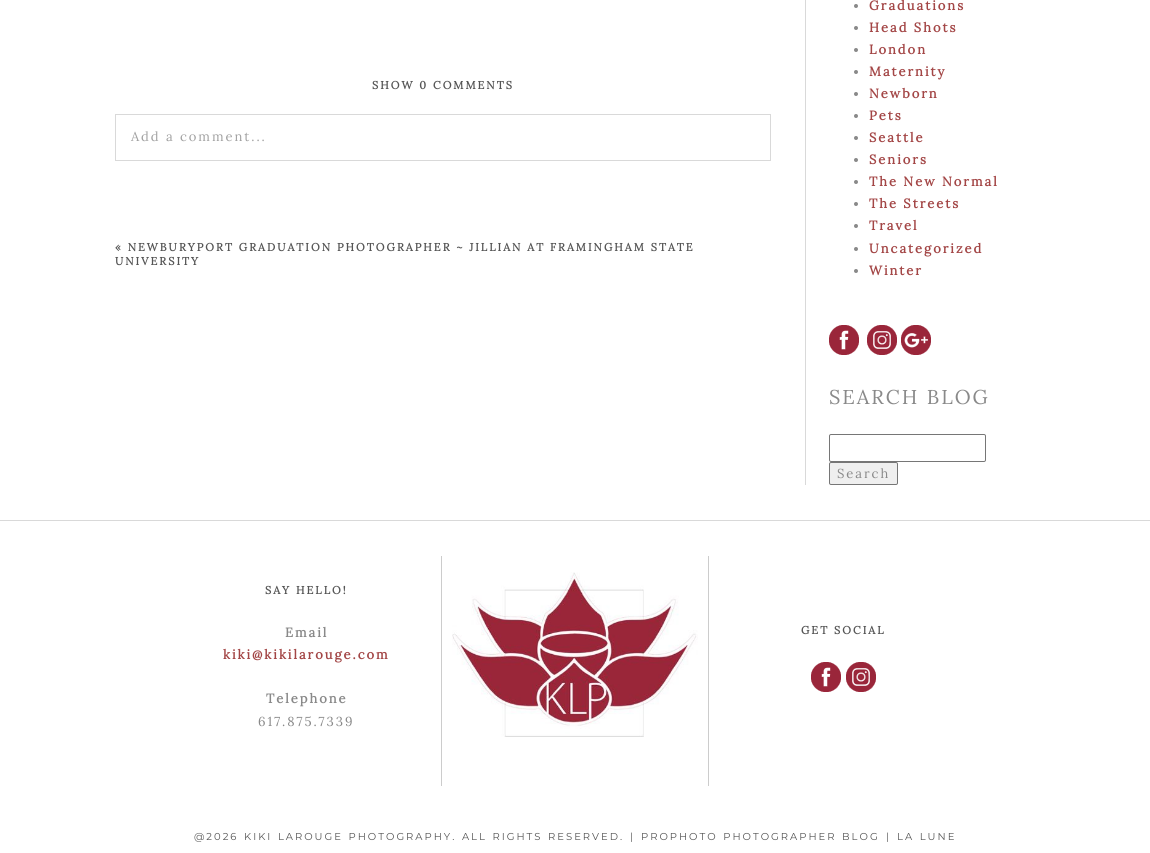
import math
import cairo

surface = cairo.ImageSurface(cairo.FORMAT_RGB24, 1150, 853)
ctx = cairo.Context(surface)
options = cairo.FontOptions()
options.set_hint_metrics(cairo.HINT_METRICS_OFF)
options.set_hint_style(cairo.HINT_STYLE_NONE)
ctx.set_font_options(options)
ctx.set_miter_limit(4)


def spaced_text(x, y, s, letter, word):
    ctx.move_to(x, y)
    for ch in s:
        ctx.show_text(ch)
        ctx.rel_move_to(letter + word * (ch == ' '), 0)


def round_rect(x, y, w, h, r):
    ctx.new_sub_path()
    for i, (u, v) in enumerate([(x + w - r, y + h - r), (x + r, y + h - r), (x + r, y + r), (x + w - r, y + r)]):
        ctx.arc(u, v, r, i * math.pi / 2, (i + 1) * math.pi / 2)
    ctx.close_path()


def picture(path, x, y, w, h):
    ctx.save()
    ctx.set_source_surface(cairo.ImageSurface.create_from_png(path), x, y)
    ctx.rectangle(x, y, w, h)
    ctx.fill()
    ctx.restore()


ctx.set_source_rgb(1, 1, 1)
ctx.paint()
ctx.select_font_face("Lora", cairo.FONT_SLANT_NORMAL, cairo.FONT_WEIGHT_BOLD)
ctx.set_font_size(11)
ctx.set_source_rgb(0.333, 0.333, 0.333)
spaced_text(372, 89, "SHOW 0 COMMENTS", 1.98, 0)
ctx.rectangle(115.5, 114.5, 655, 46)
ctx.set_source_rgb(0.851, 0.851, 0.851)
ctx.set_line_width(1)
ctx.stroke()
ctx.select_font_face("Lora")
ctx.set_font_size(13)
ctx.set_source_rgb(0.631, 0.631, 0.631)
spaced_text(131, 141, "Add a comment...", 1.95, 0)
ctx.select_font_face("Lora", cairo.FONT_SLANT_NORMAL, cairo.FONT_WEIGHT_BOLD)
ctx.set_font_size(11)
ctx.set_source_rgb(0.333, 0.333, 0.333)
spaced_text(115, 251, "« NEWBURYPORT GRADUATION PHOTOGRAPHER ~ JILLIAN AT FRAMINGHAM STATE", 1.98, 0)
spaced_text(115, 265, "UNIVERSITY", 1.98, 0)
ctx.set_source_rgb(0.851, 0.851, 0.851)
ctx.rectangle(805, 0, 1, 485)
ctx.fill()
ctx.set_source_rgb(0.537, 0.537, 0.537)
ctx.arc(856, 6, 2, 0, 2 * math.pi)
ctx.fill()
ctx.set_font_size(13)
ctx.set_source_rgb(0.639, 0.275, 0.275)
spaced_text(869, 10, "Graduations", 1.95, 0)
ctx.set_source_rgb(0.537, 0.537, 0.537)
ctx.new_path()
ctx.arc(856, 28, 2, 0, 2 * math.pi)
ctx.fill()
ctx.set_source_rgb(0.639, 0.275, 0.275)
spaced_text(869, 32, "Head Shots", 1.95, 0)
ctx.set_source_rgb(0.537, 0.537, 0.537)
ctx.new_path()
ctx.arc(856, 50, 2, 0, 2 * math.pi)
ctx.fill()
ctx.set_source_rgb(0.639, 0.275, 0.275)
spaced_text(869, 54, "London", 1.95, 0)
ctx.set_source_rgb(0.537, 0.537, 0.537)
ctx.new_path()
ctx.arc(856, 72, 2, 0, 2 * math.pi)
ctx.fill()
ctx.set_source_rgb(0.639, 0.275, 0.275)
spaced_text(869, 76, "Maternity", 1.95, 0)
ctx.set_source_rgb(0.537, 0.537, 0.537)
ctx.new_path()
ctx.arc(856, 94, 2, 0, 2 * math.pi)
ctx.fill()
ctx.set_source_rgb(0.639, 0.275, 0.275)
spaced_text(869, 98, "Newborn", 1.95, 0)
ctx.set_source_rgb(0.537, 0.537, 0.537)
ctx.new_path()
ctx.arc(856, 116, 2, 0, 2 * math.pi)
ctx.fill()
ctx.set_source_rgb(0.639, 0.275, 0.275)
spaced_text(869, 120, "Pets", 1.95, 0)
ctx.set_source_rgb(0.537, 0.537, 0.537)
ctx.new_path()
ctx.arc(856, 138, 2, 0, 2 * math.pi)
ctx.fill()
ctx.set_source_rgb(0.639, 0.275, 0.275)
spaced_text(869, 142, "Seattle", 1.95, 0)
ctx.set_source_rgb(0.537, 0.537, 0.537)
ctx.new_path()
ctx.arc(856, 160, 2, 0, 2 * math.pi)
ctx.fill()
ctx.set_source_rgb(0.639, 0.275, 0.275)
spaced_text(869, 164, "Seniors", 1.95, 0)
ctx.set_source_rgb(0.537, 0.537, 0.537)
ctx.new_path()
ctx.arc(856, 182, 2, 0, 2 * math.pi)
ctx.fill()
ctx.set_source_rgb(0.639, 0.275, 0.275)
spaced_text(869, 186, "The New Normal", 1.95, 0)
ctx.set_source_rgb(0.537, 0.537, 0.537)
ctx.new_path()
ctx.arc(856, 204, 2, 0, 2 * math.pi)
ctx.fill()
ctx.set_source_rgb(0.639, 0.275, 0.275)
spaced_text(869, 208, "The Streets", 1.95, 0)
ctx.set_source_rgb(0.537, 0.537, 0.537)
ctx.new_path()
ctx.arc(856, 226, 2, 0, 2 * math.pi)
ctx.fill()
ctx.set_source_rgb(0.639, 0.275, 0.275)
spaced_text(869, 230, "Travel", 1.95, 0)
ctx.set_source_rgb(0.537, 0.537, 0.537)
ctx.new_path()
ctx.arc(856, 249, 2, 0, 2 * math.pi)
ctx.fill()
ctx.set_source_rgb(0.639, 0.275, 0.275)
spaced_text(869, 253, "Uncategorized", 1.95, 0)
ctx.set_source_rgb(0.537, 0.537, 0.537)
ctx.new_path()
ctx.arc(856, 271, 2, 0, 2 * math.pi)
ctx.fill()
ctx.set_source_rgb(0.639, 0.275, 0.275)
spaced_text(869, 275, "Winter", 1.95, 0)
picture("img1.png", 829, 325, 30, 30)
picture("img2.png", 867, 325, 30, 30)
picture("img3.png", 901, 325, 30, 30)
ctx.select_font_face("Lora")
ctx.set_font_size(20)
ctx.set_source_rgb(0.537, 0.537, 0.537)
spaced_text(829, 404, "SEARCH BLOG", 2, 0)
round_rect(829.5, 434.5, 156, 27, 1.5)
ctx.set_source_rgb(0.463, 0.463, 0.463)
ctx.stroke()
ctx.set_source_rgb(0.937, 0.937, 0.937)
round_rect(829.5, 462.5, 68, 22, 1.5)
ctx.fill_preserve()
ctx.set_source_rgb(0.463, 0.463, 0.463)
ctx.stroke()
ctx.set_font_size(13)
ctx.set_source_rgb(0.537, 0.537, 0.537)
spaced_text(837, 478, "Search", 1.95, 0)
ctx.set_source_rgb(0.851, 0.851, 0.851)
ctx.rectangle(0, 520, 1150, 1)
ctx.fill()
ctx.select_font_face("Lora", cairo.FONT_SLANT_NORMAL, cairo.FONT_WEIGHT_BOLD)
ctx.set_font_size(11)
ctx.set_source_rgb(0.333, 0.333, 0.333)
spaced_text(265, 594, "SAY HELLO!", 1.98, 0)
ctx.set_font_size(13)
ctx.set_source_rgb(0.537, 0.537, 0.537)
spaced_text(285, 637, "Email", 1.95, 0)
ctx.set_source_rgb(0.639, 0.275, 0.275)
spaced_text(223, 659, "kiki@kikilarouge.com", 1.95, 0)
ctx.set_source_rgb(0.537, 0.537, 0.537)
spaced_text(266, 703, "Telephone", 1.95, 0)
ctx.select_font_face("Lora")
spaced_text(258, 726, "617.875.7339", 1.95, 0)
ctx.set_source_rgb(0.8, 0.8, 0.8)
ctx.rectangle(708, 556, 1, 230)
ctx.fill()
ctx.rectangle(441, 556, 1, 230)
ctx.fill()
picture("img4.png", 452, 572, 246, 165)
ctx.select_font_face("Lora", cairo.FONT_SLANT_NORMAL, cairo.FONT_WEIGHT_BOLD)
ctx.set_font_size(11)
ctx.set_source_rgb(0.333, 0.333, 0.333)
spaced_text(801, 634, "GET SOCIAL", 1.98, 0)
picture("img1.png", 811, 662, 30, 30)
picture("img2.png", 846, 662, 30, 30)
ctx.select_font_face("Montserrat Thin")
ctx.set_font_size(10)
spaced_text(194, 840, "@2026 KIKI LAROUGE PHOTOGRAPHY. ALL RIGHTS RESERVED.", 2, 1)
spaced_text(630, 840, "|", 2, 0)
spaced_text(641, 840, "PROPHOTO PHOTOGRAPHER BLOG", 2, 1)
spaced_text(886, 840, "|", 2, 0)
spaced_text(897, 840, "LA LUNE", 2, 1)
surface.write_to_png("page.png")
